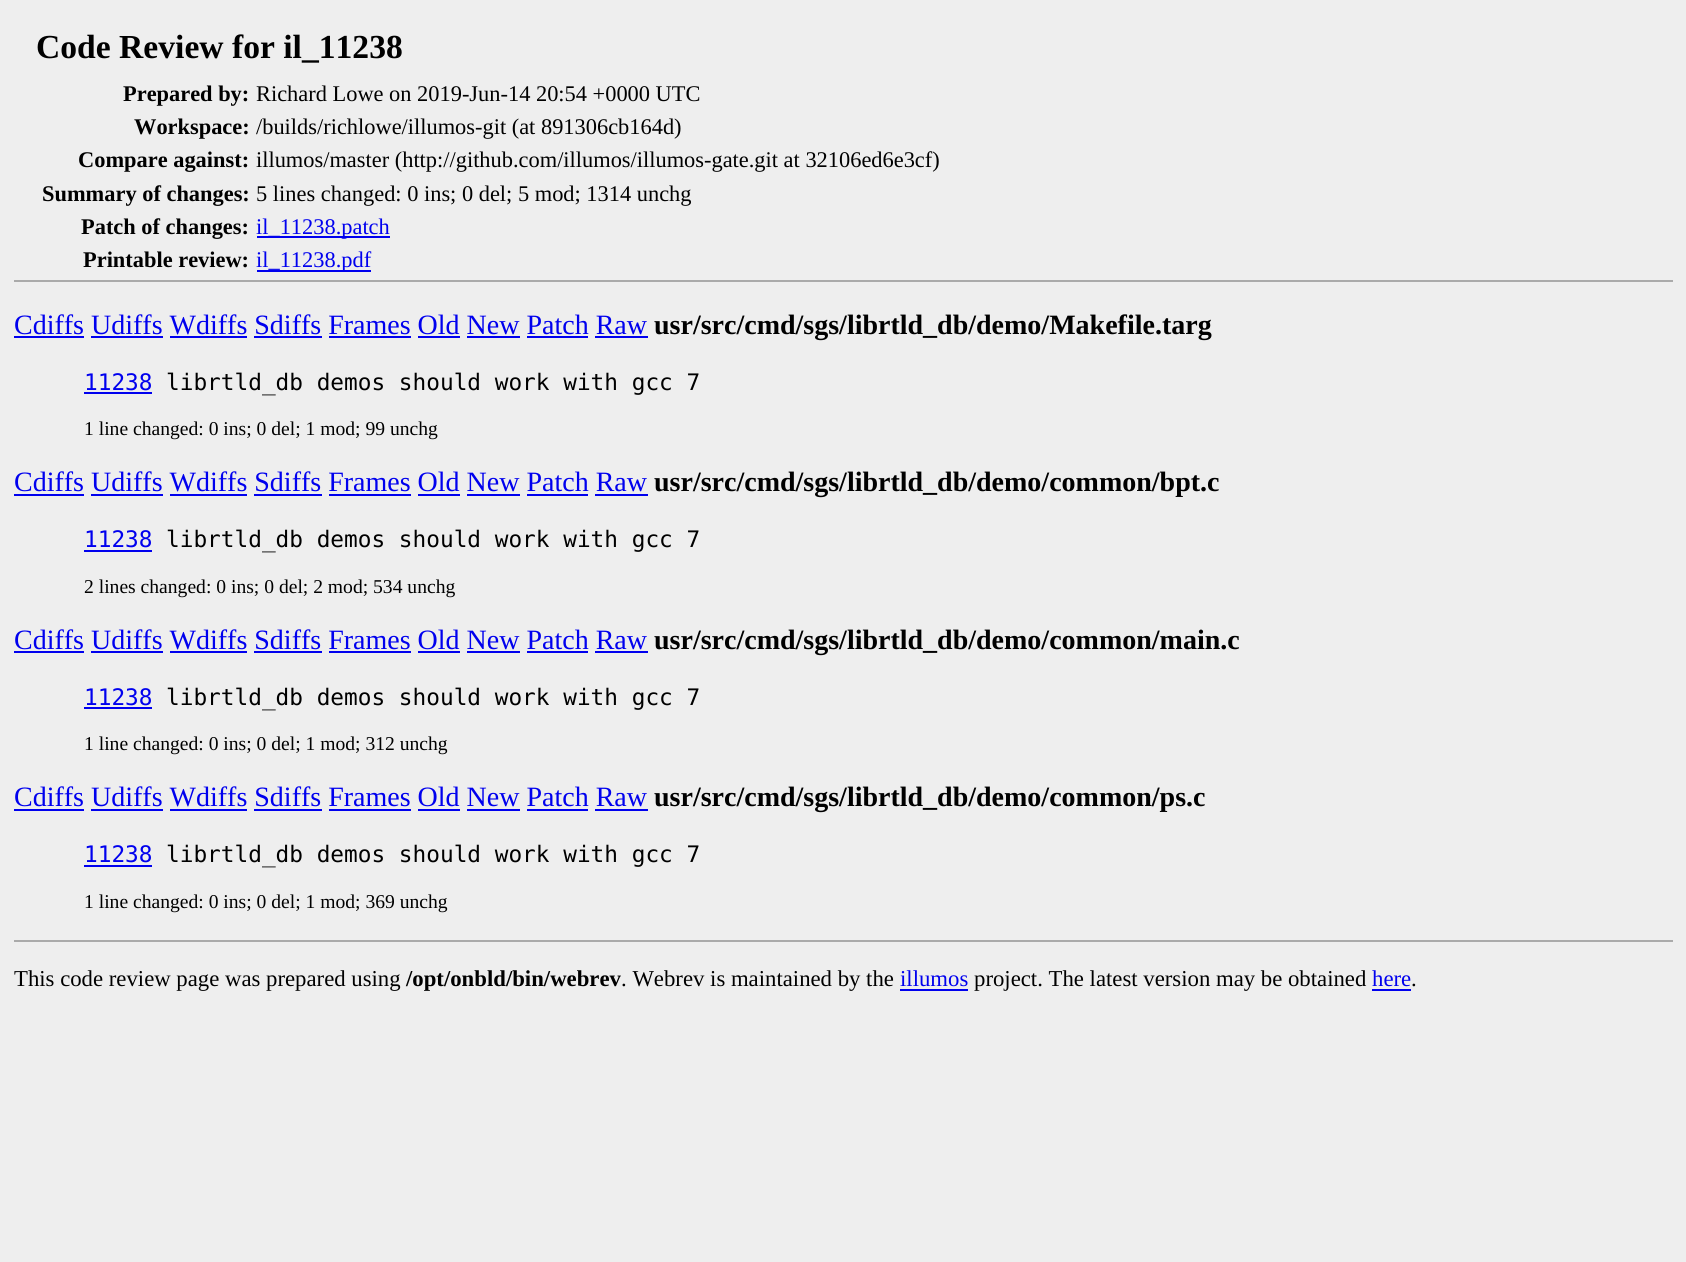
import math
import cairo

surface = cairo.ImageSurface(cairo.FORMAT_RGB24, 1686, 1262)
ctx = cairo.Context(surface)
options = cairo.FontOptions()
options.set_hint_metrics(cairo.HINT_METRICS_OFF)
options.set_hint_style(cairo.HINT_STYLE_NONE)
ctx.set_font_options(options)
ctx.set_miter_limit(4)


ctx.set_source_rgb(0.933, 0.933, 0.933)
ctx.paint()
ctx.set_source_rgb(0.667, 0.667, 0.667)
ctx.rectangle(14, 280, 1659, 2)
ctx.fill()
ctx.select_font_face("Liberation Serif", cairo.FONT_SLANT_NORMAL, cairo.FONT_WEIGHT_BOLD)
ctx.set_font_size(33.6)
ctx.set_source_rgb(0, 0, 0)
ctx.move_to(36, 58)
ctx.show_text("Code Review for il_11238")
ctx.set_font_size(22.4)
ctx.move_to(123, 101)
ctx.show_text("Prepared by:")
ctx.select_font_face("Liberation Serif")
ctx.move_to(256, 101)
ctx.show_text("Richard Lowe on 2019-Jun-14 20:54 +0000 UTC")
ctx.select_font_face("Liberation Serif", cairo.FONT_SLANT_NORMAL, cairo.FONT_WEIGHT_BOLD)
ctx.move_to(134, 134)
ctx.show_text("Workspace:")
ctx.select_font_face("Liberation Serif")
ctx.move_to(256, 134)
ctx.show_text("/builds/richlowe/illumos-git (at 891306cb164d)")
ctx.select_font_face("Liberation Serif", cairo.FONT_SLANT_NORMAL, cairo.FONT_WEIGHT_BOLD)
ctx.move_to(78, 167)
ctx.show_text("Compare against:")
ctx.select_font_face("Liberation Serif")
ctx.move_to(256, 167)
ctx.show_text("illumos/master (http://github.com/illumos/illumos-gate.git at 32106ed6e3cf)")
ctx.select_font_face("Liberation Serif", cairo.FONT_SLANT_NORMAL, cairo.FONT_WEIGHT_BOLD)
ctx.move_to(42, 201)
ctx.show_text("Summary of changes:")
ctx.select_font_face("Liberation Serif")
ctx.move_to(256, 201)
ctx.show_text("5 lines changed: 0 ins; 0 del; 5 mod; 1314 unchg")
ctx.select_font_face("Liberation Serif", cairo.FONT_SLANT_NORMAL, cairo.FONT_WEIGHT_BOLD)
ctx.move_to(81, 234)
ctx.show_text("Patch of changes:")
ctx.set_source_rgb(0, 0, 0.933)
ctx.rectangle(257, 236, 133, 2)
ctx.fill()
ctx.select_font_face("Liberation Serif")
ctx.move_to(256, 234)
ctx.show_text("il_11238.patch")
ctx.select_font_face("Liberation Serif", cairo.FONT_SLANT_NORMAL, cairo.FONT_WEIGHT_BOLD)
ctx.set_source_rgb(0, 0, 0)
ctx.move_to(83, 267)
ctx.show_text("Printable review:")
ctx.set_source_rgb(0, 0, 0.933)
ctx.rectangle(257, 270, 114, 2)
ctx.fill()
ctx.select_font_face("Liberation Serif")
ctx.move_to(256, 267)
ctx.show_text("il_11238.pdf")
ctx.set_font_size(28)
ctx.move_to(14, 334)
ctx.show_text("Cdiffs Udiffs Wdiffs Sdiffs Frames Old New Patch Raw")
ctx.rectangle(14, 336, 70, 2)
ctx.fill()
ctx.select_font_face("Liberation Serif", cairo.FONT_SLANT_NORMAL, cairo.FONT_WEIGHT_BOLD)
ctx.set_source_rgb(0, 0, 0)
ctx.move_to(654, 334)
ctx.show_text("usr/src/cmd/sgs/librtld_db/demo/Makefile.targ")
ctx.set_source_rgb(0, 0, 0.933)
ctx.rectangle(91, 336, 72, 2)
ctx.fill()
ctx.rectangle(170, 336, 77, 2)
ctx.fill()
ctx.rectangle(254, 336, 68, 2)
ctx.fill()
ctx.rectangle(329, 336, 82, 2)
ctx.fill()
ctx.rectangle(418, 336, 42, 2)
ctx.fill()
ctx.rectangle(467, 336, 53, 2)
ctx.fill()
ctx.rectangle(527, 336, 61, 2)
ctx.fill()
ctx.rectangle(595, 336, 53, 2)
ctx.fill()
ctx.select_font_face("DejaVu Sans Mono")
ctx.set_font_size(22.75)
ctx.move_to(84, 390)
ctx.show_text("11238")
ctx.rectangle(84, 392, 68, 2)
ctx.fill()
ctx.set_source_rgb(0, 0, 0)
ctx.move_to(166, 390)
ctx.show_text("librtld_db demos should work with gcc 7")
ctx.select_font_face("Liberation Serif")
ctx.set_font_size(19.6)
ctx.move_to(84, 435)
ctx.show_text("1 line changed: 0 ins; 0 del; 1 mod; 99 unchg")
ctx.set_font_size(28)
ctx.set_source_rgb(0, 0, 0.933)
ctx.move_to(14, 491)
ctx.show_text("Cdiffs Udiffs Wdiffs Sdiffs Frames Old New Patch Raw")
ctx.rectangle(14, 494, 70, 2)
ctx.fill()
ctx.select_font_face("Liberation Serif", cairo.FONT_SLANT_NORMAL, cairo.FONT_WEIGHT_BOLD)
ctx.set_source_rgb(0, 0, 0)
ctx.move_to(654, 491)
ctx.show_text("usr/src/cmd/sgs/librtld_db/demo/common/bpt.c")
ctx.set_source_rgb(0, 0, 0.933)
ctx.rectangle(91, 494, 72, 2)
ctx.fill()
ctx.rectangle(170, 494, 77, 2)
ctx.fill()
ctx.rectangle(254, 494, 68, 2)
ctx.fill()
ctx.rectangle(329, 494, 82, 2)
ctx.fill()
ctx.rectangle(418, 494, 42, 2)
ctx.fill()
ctx.rectangle(467, 494, 53, 2)
ctx.fill()
ctx.rectangle(527, 494, 61, 2)
ctx.fill()
ctx.rectangle(595, 494, 53, 2)
ctx.fill()
ctx.select_font_face("DejaVu Sans Mono")
ctx.set_font_size(22.75)
ctx.move_to(84, 547)
ctx.show_text("11238")
ctx.rectangle(84, 550, 68, 2)
ctx.fill()
ctx.set_source_rgb(0, 0, 0)
ctx.move_to(166, 547)
ctx.show_text("librtld_db demos should work with gcc 7")
ctx.select_font_face("Liberation Serif")
ctx.set_font_size(19.6)
ctx.move_to(84, 593)
ctx.show_text("2 lines changed: 0 ins; 0 del; 2 mod; 534 unchg")
ctx.set_font_size(28)
ctx.set_source_rgb(0, 0, 0.933)
ctx.move_to(14, 649)
ctx.show_text("Cdiffs Udiffs Wdiffs Sdiffs Frames Old New Patch Raw")
ctx.rectangle(14, 651, 70, 2)
ctx.fill()
ctx.select_font_face("Liberation Serif", cairo.FONT_SLANT_NORMAL, cairo.FONT_WEIGHT_BOLD)
ctx.set_source_rgb(0, 0, 0)
ctx.move_to(654, 649)
ctx.show_text("usr/src/cmd/sgs/librtld_db/demo/common/main.c")
ctx.set_source_rgb(0, 0, 0.933)
ctx.rectangle(91, 651, 72, 2)
ctx.fill()
ctx.rectangle(170, 651, 77, 2)
ctx.fill()
ctx.rectangle(254, 651, 68, 2)
ctx.fill()
ctx.rectangle(329, 651, 82, 2)
ctx.fill()
ctx.rectangle(418, 651, 42, 2)
ctx.fill()
ctx.rectangle(467, 651, 53, 2)
ctx.fill()
ctx.rectangle(527, 651, 61, 2)
ctx.fill()
ctx.rectangle(595, 651, 53, 2)
ctx.fill()
ctx.select_font_face("DejaVu Sans Mono")
ctx.set_font_size(22.75)
ctx.move_to(84, 705)
ctx.show_text("11238")
ctx.rectangle(84, 707, 68, 2)
ctx.fill()
ctx.set_source_rgb(0, 0, 0)
ctx.move_to(166, 705)
ctx.show_text("librtld_db demos should work with gcc 7")
ctx.select_font_face("Liberation Serif")
ctx.set_font_size(19.6)
ctx.move_to(84, 750)
ctx.show_text("1 line changed: 0 ins; 0 del; 1 mod; 312 unchg")
ctx.set_font_size(28)
ctx.set_source_rgb(0, 0, 0.933)
ctx.move_to(14, 806)
ctx.show_text("Cdiffs Udiffs Wdiffs Sdiffs Frames Old New Patch Raw")
ctx.rectangle(14, 809, 70, 2)
ctx.fill()
ctx.select_font_face("Liberation Serif", cairo.FONT_SLANT_NORMAL, cairo.FONT_WEIGHT_BOLD)
ctx.set_source_rgb(0, 0, 0)
ctx.move_to(654, 806)
ctx.show_text("usr/src/cmd/sgs/librtld_db/demo/common/ps.c")
ctx.set_source_rgb(0, 0, 0.933)
ctx.rectangle(91, 809, 72, 2)
ctx.fill()
ctx.rectangle(170, 809, 77, 2)
ctx.fill()
ctx.rectangle(254, 809, 68, 2)
ctx.fill()
ctx.rectangle(329, 809, 82, 2)
ctx.fill()
ctx.rectangle(418, 809, 42, 2)
ctx.fill()
ctx.rectangle(467, 809, 53, 2)
ctx.fill()
ctx.rectangle(527, 809, 61, 2)
ctx.fill()
ctx.rectangle(595, 809, 53, 2)
ctx.fill()
ctx.select_font_face("DejaVu Sans Mono")
ctx.set_font_size(22.75)
ctx.move_to(84, 862)
ctx.show_text("11238")
ctx.rectangle(84, 865, 68, 2)
ctx.fill()
ctx.set_source_rgb(0, 0, 0)
ctx.move_to(166, 862)
ctx.show_text("librtld_db demos should work with gcc 7")
ctx.select_font_face("Liberation Serif")
ctx.set_font_size(19.6)
ctx.move_to(84, 908)
ctx.show_text("1 line changed: 0 ins; 0 del; 1 mod; 369 unchg")
ctx.set_source_rgb(0.667, 0.667, 0.667)
ctx.rectangle(14, 940, 1659, 2)
ctx.fill()
ctx.set_font_size(22.75)
ctx.set_source_rgb(0, 0, 0)
ctx.move_to(14, 986)
ctx.show_text("This code review page was prepared using")
ctx.select_font_face("Liberation Serif", cairo.FONT_SLANT_NORMAL, cairo.FONT_WEIGHT_BOLD)
ctx.move_to(406, 986)
ctx.show_text("/opt/onbld/bin/webrev")
ctx.select_font_face("Liberation Serif")
ctx.move_to(621, 986)
ctx.show_text(". Webrev is maintained by the")
ctx.set_source_rgb(0, 0, 0.933)
ctx.move_to(900, 986)
ctx.show_text("illumos")
ctx.rectangle(900, 989, 68, 2)
ctx.fill()
ctx.set_source_rgb(0, 0, 0)
ctx.move_to(974, 986)
ctx.show_text("project. The latest version may be obtained")
ctx.set_source_rgb(0, 0, 0.933)
ctx.move_to(1372, 986)
ctx.show_text("here")
ctx.rectangle(1372, 989, 39, 2)
ctx.fill()
ctx.set_source_rgb(0, 0, 0)
ctx.move_to(1411, 986)
ctx.show_text(".")
surface.write_to_png("page.png")
